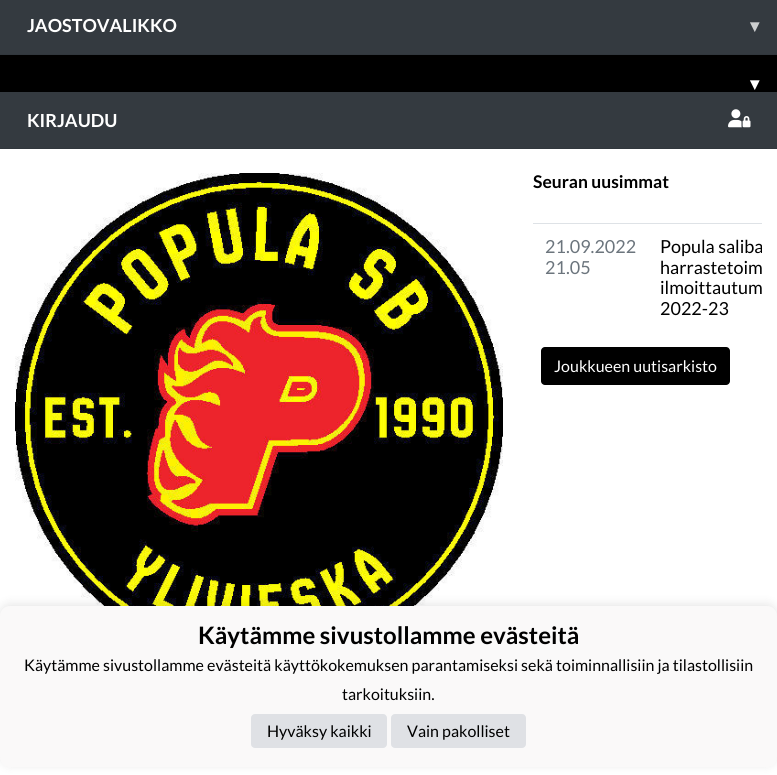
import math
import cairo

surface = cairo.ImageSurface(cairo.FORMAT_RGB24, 777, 775)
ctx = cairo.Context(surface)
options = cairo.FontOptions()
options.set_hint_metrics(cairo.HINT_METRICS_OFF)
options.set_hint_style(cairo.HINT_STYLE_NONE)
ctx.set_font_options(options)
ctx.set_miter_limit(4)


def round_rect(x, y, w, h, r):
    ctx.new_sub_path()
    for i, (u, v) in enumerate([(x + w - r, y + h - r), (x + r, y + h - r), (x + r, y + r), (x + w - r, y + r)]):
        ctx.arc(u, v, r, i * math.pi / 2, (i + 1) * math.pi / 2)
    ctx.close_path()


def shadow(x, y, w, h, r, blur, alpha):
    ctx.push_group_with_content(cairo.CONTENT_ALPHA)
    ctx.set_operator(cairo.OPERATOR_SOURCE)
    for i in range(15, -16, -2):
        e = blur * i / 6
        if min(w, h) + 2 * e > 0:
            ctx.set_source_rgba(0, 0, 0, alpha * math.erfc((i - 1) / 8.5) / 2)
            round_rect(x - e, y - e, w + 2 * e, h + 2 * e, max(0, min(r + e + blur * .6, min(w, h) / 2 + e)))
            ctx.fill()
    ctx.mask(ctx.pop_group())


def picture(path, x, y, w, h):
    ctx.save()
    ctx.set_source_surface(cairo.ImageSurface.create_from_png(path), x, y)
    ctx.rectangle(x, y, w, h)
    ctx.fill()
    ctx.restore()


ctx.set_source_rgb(1, 1, 1)
ctx.paint()
ctx.set_source_rgb(0.204, 0.227, 0.251)
ctx.rectangle(0, 0, 777, 54)
ctx.fill()
ctx.set_source_rgb(0.192, 0.216, 0.239)
ctx.rectangle(0, 54, 777, 1)
ctx.fill()
ctx.select_font_face("Lato", cairo.FONT_SLANT_NORMAL, cairo.FONT_WEIGHT_BOLD)
ctx.set_font_size(18)
ctx.set_source_rgb(1, 1, 1)
ctx.move_to(27, 32)
ctx.show_text("JAOSTOVALIKKO")
ctx.select_font_face("DejaVu Sans", cairo.FONT_SLANT_NORMAL, cairo.FONT_WEIGHT_BOLD)
ctx.set_source_rgb(0.8, 0.808, 0.812)
ctx.move_to(750, 32)
ctx.show_text("▾")
ctx.set_source_rgb(0, 0, 0)
ctx.rectangle(0, 55, 777, 37)
ctx.fill()
ctx.set_source_rgb(1, 1, 1)
ctx.move_to(750, 90)
ctx.show_text("▾")
ctx.set_source_rgb(0.204, 0.227, 0.251)
ctx.rectangle(0, 92, 777, 56)
ctx.fill()
ctx.set_source_rgb(0.192, 0.216, 0.239)
ctx.rectangle(0, 148, 777, 1)
ctx.fill()
ctx.select_font_face("Lato", cairo.FONT_SLANT_NORMAL, cairo.FONT_WEIGHT_BOLD)
ctx.set_source_rgb(1, 1, 1)
ctx.move_to(27, 127)
ctx.show_text("KIRJAUDU")
picture("img1.png", 728, 109, 23, 19)
picture("img2.png", 15, 173, 488, 433)
ctx.set_font_size(17.5)
ctx.set_source_rgb(0, 0, 0)
ctx.move_to(533, 188)
ctx.show_text("Seuran uusimmat")
ctx.select_font_face("Lato")
ctx.set_font_size(18)
ctx.set_source_rgb(0.424, 0.459, 0.49)
ctx.move_to(545, 253)
ctx.show_text("21.09.2022")
ctx.move_to(545, 274)
ctx.show_text("21.05")
ctx.set_source_rgb(0.871, 0.886, 0.902)
ctx.rectangle(533, 223, 229, 1)
ctx.fill()
ctx.save()
ctx.rectangle(533, 223, 229, 178)
ctx.clip()
ctx.set_source_rgb(0, 0, 0)
ctx.move_to(660, 253)
ctx.show_text("Popula saliba")
ctx.restore()
ctx.set_source_rgb(0, 0, 0)
ctx.move_to(660, 274)
ctx.show_text("harrastetoim")
ctx.move_to(660, 294)
ctx.show_text("ilmoittautum")
ctx.move_to(660, 315)
ctx.show_text("2022-23")
round_rect(541, 347, 189, 38, 4)
ctx.fill()
ctx.set_font_size(16)
ctx.set_source_rgb(1, 1, 1)
ctx.move_to(554, 372)
ctx.show_text("Joukkueen uutisarkisto")
ctx.set_source_rgb(0, 0, 0)
shadow(0, 604, 777, 161, 10, 5, 0.1)
ctx.set_source_rgb(0.98, 0.973, 0.973)
round_rect(0, 606, 777, 161, 10)
ctx.fill()
ctx.select_font_face("Lato", cairo.FONT_SLANT_NORMAL, cairo.FONT_WEIGHT_BOLD)
ctx.set_font_size(24)
ctx.set_source_rgb(0, 0, 0)
ctx.move_to(198, 644)
ctx.show_text("Käytämme sivustollamme evästeitä")
ctx.select_font_face("Lato")
ctx.set_font_size(16)
ctx.move_to(24, 671)
ctx.show_text("Käytämme sivustollamme evästeitä käyttökokemuksen parantamiseksi sekä toiminnallisiin ja tilastollisiin")
ctx.move_to(342, 700)
ctx.show_text("tarkoituksiin.")
ctx.set_source_rgb(0.875, 0.882, 0.898)
round_rect(251, 714, 136, 34, 4)
ctx.fill()
ctx.set_source_rgb(0, 0, 0)
ctx.move_to(267, 737)
ctx.show_text("Hyväksy kaikki")
ctx.set_source_rgb(0.875, 0.882, 0.898)
round_rect(391, 714, 135, 34, 4)
ctx.fill()
ctx.set_source_rgb(0, 0, 0)
ctx.move_to(407, 737)
ctx.show_text("Vain pakolliset")
surface.write_to_png("page.png")
